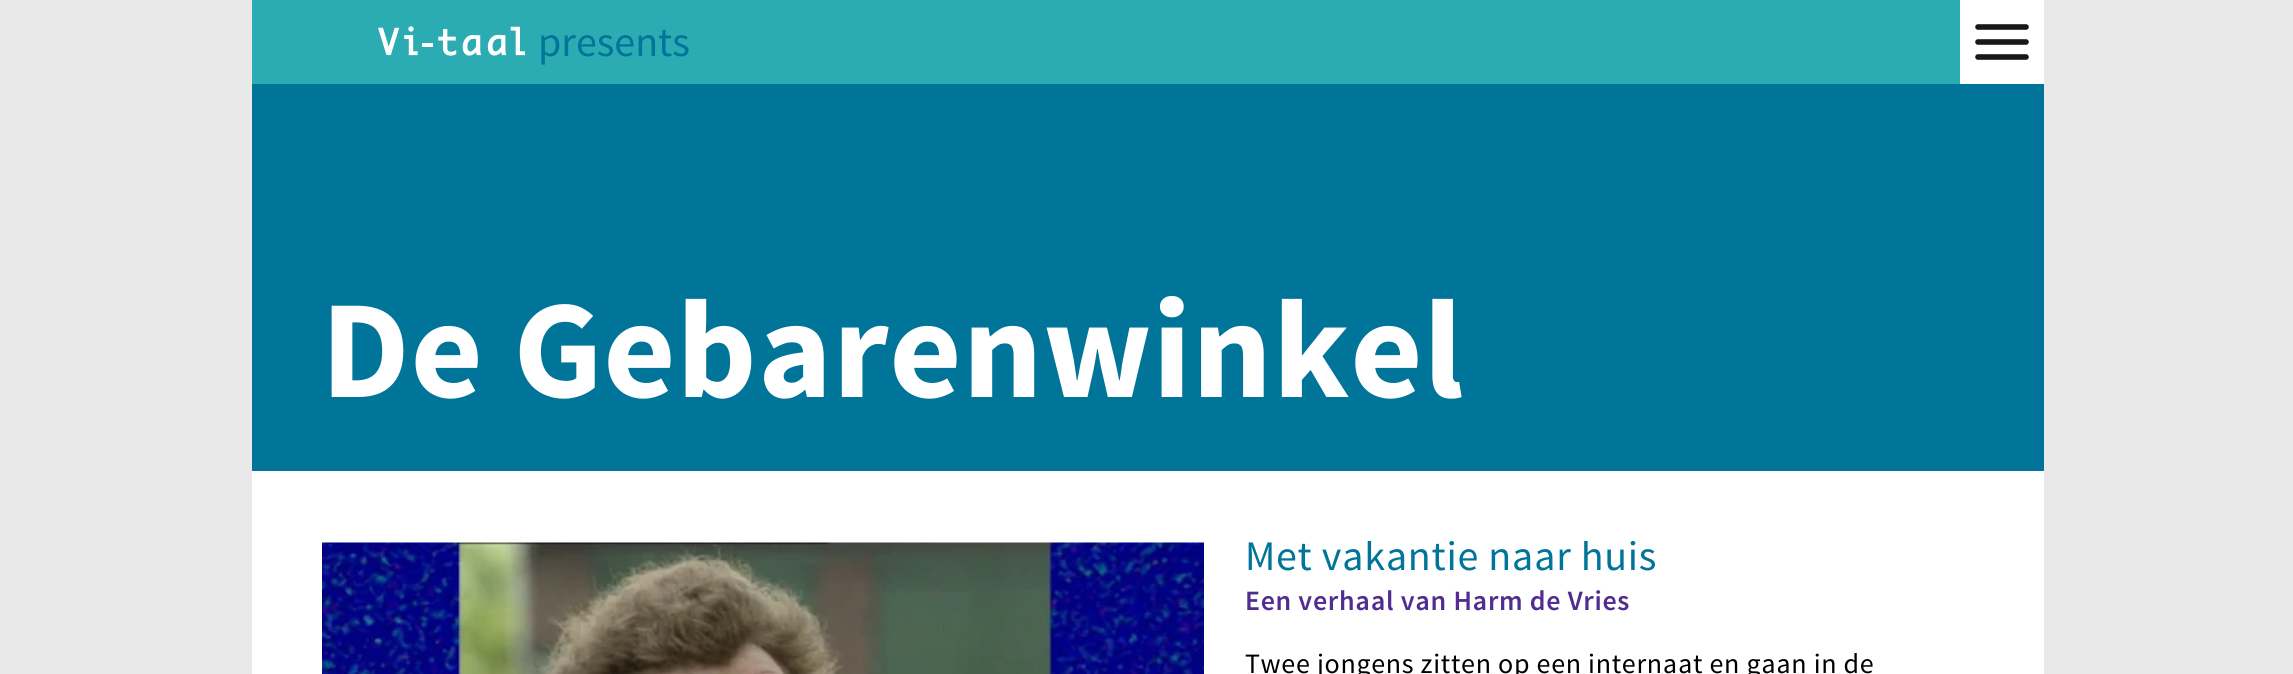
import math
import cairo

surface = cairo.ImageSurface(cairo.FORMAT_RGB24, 2293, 674)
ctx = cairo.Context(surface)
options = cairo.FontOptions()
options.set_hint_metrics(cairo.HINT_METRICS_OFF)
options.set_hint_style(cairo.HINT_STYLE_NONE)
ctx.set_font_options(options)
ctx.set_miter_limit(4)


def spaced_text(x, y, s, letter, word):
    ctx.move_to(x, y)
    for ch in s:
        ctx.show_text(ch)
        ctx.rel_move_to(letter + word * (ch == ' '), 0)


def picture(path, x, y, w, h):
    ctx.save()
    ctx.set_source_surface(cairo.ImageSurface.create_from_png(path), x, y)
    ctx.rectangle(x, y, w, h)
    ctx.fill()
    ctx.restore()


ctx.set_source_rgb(0.914, 0.914, 0.914)
ctx.paint()
ctx.set_source_rgb(0.169, 0.671, 0.698)
ctx.rectangle(252, 0, 1708, 84)
ctx.fill()
picture("img1.png", 378, 26, 147, 30)
ctx.select_font_face("Source Sans Pro")
ctx.set_font_size(42)
ctx.set_source_rgb(0, 0.459, 0.6)
ctx.move_to(538, 56)
ctx.show_text("presents")
ctx.set_source_rgb(1, 1, 1)
ctx.rectangle(1960, 0, 84, 84)
ctx.fill()
ctx.new_path()
ctx.move_to(1978, 27)
ctx.line_to(2026, 27)
ctx.move_to(1978, 57)
ctx.line_to(2026, 57)
ctx.move_to(1978, 42)
ctx.line_to(2026, 42)
ctx.set_source_rgb(0.102, 0.09, 0.106)
ctx.set_line_width(5.6)
ctx.set_line_cap(cairo.LINE_CAP_ROUND)
ctx.stroke()
ctx.set_source_rgb(1, 1, 1)
ctx.rectangle(252, 471, 1792, 203)
ctx.fill()
ctx.set_source_rgb(0, 0.459, 0.6)
ctx.rectangle(252, 84, 1792, 387)
ctx.fill()
ctx.select_font_face("Source Sans Pro", cairo.FONT_SLANT_NORMAL, cairo.FONT_WEIGHT_BOLD)
ctx.set_font_size(140)
ctx.set_source_rgb(1, 1, 1)
spaced_text(321, 397, "De Gebarenwinkel", 0.7, 0)
picture("img2.png", 322, 542, 882, 132)
ctx.save()
ctx.rectangle(322, 541, 1652, 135)
ctx.clip()
ctx.select_font_face("Source Sans Pro")
ctx.set_font_size(42)
ctx.set_source_rgb(0, 0.459, 0.6)
spaced_text(1245, 570, "Met vakantie naar huis", 0.7, 0)
ctx.restore()
ctx.select_font_face("Source Sans Pro SemiBold")
ctx.set_font_size(28)
ctx.set_source_rgb(0.318, 0.176, 0.561)
spaced_text(1245, 610, "Een verhaal van Harm de Vries", 0.7, 0)
ctx.select_font_face("Source Sans Pro")
ctx.set_source_rgb(0, 0, 0)
spaced_text(1245, 673, "Twee jongens zitten op een internaat en gaan in de", 0.7, 0)
surface.write_to_png("page.png")
